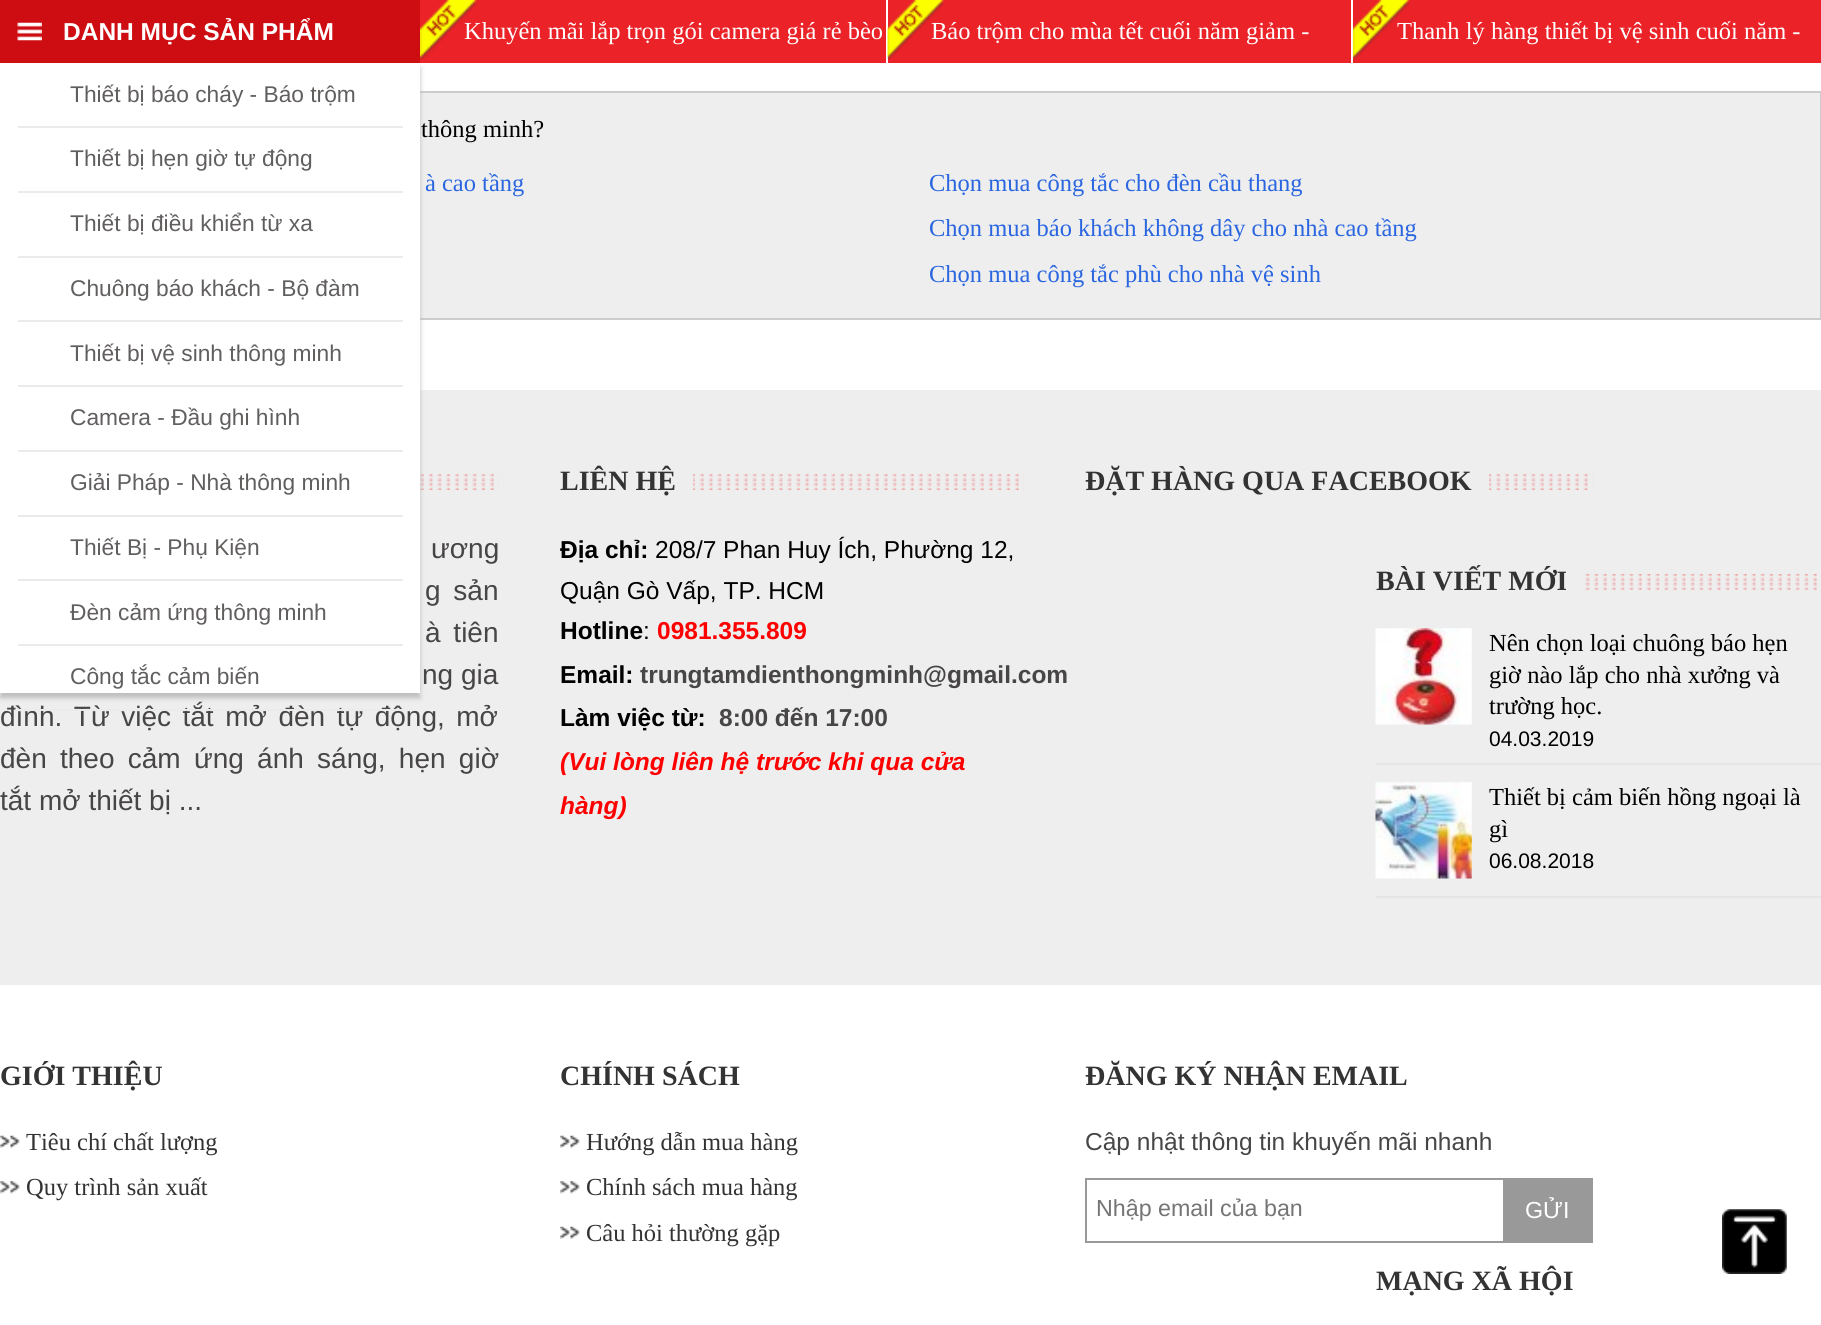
import math
import cairo

surface = cairo.ImageSurface(cairo.FORMAT_RGB24, 1821, 1325)
ctx = cairo.Context(surface)
options = cairo.FontOptions()
options.set_hint_metrics(cairo.HINT_METRICS_OFF)
options.set_hint_style(cairo.HINT_STYLE_NONE)
ctx.set_font_options(options)
ctx.set_miter_limit(4)


def spaced_text(x, y, s, letter, word):
    ctx.move_to(x, y)
    for ch in s:
        ctx.show_text(ch)
        ctx.rel_move_to(letter + word * (ch == ' '), 0)


def round_rect(x, y, w, h, r):
    ctx.new_sub_path()
    for i, (u, v) in enumerate([(x + w - r, y + h - r), (x + r, y + h - r), (x + r, y + r), (x + w - r, y + r)]):
        ctx.arc(u, v, r, i * math.pi / 2, (i + 1) * math.pi / 2)
    ctx.close_path()


def shadow(x, y, w, h, r, blur, alpha):
    ctx.push_group_with_content(cairo.CONTENT_ALPHA)
    ctx.set_operator(cairo.OPERATOR_SOURCE)
    for i in range(15, -16, -2):
        e = blur * i / 6
        if min(w, h) + 2 * e > 0:
            ctx.set_source_rgba(0, 0, 0, alpha * math.erfc((i - 1) / 8.5) / 2)
            round_rect(x - e, y - e, w + 2 * e, h + 2 * e, max(0, min(r + e + blur * .6, min(w, h) / 2 + e)))
            ctx.fill()
    ctx.mask(ctx.pop_group())


def picture(path, x, y, w, h):
    ctx.save()
    ctx.set_source_surface(cairo.ImageSurface.create_from_png(path), x, y)
    ctx.rectangle(x, y, w, h)
    ctx.fill()
    ctx.restore()


ctx.set_source_rgb(1, 1, 1)
ctx.paint()
ctx.set_source_rgb(0.918, 0.133, 0.153)
ctx.rectangle(420, 0, 1401, 63)
ctx.fill()
ctx.set_source_rgb(0.804, 0.051, 0.071)
ctx.rectangle(0, 0, 420, 63)
ctx.fill()
picture("img1.png", 17, 22, 25, 19)
ctx.select_font_face("Liberation Sans", cairo.FONT_SLANT_NORMAL, cairo.FONT_WEIGHT_BOLD)
ctx.set_font_size(24.5)
ctx.set_source_rgb(1, 1, 1)
ctx.move_to(63, 40)
ctx.show_text("DANH MỤC SẢN PHẨM")
ctx.select_font_face("Liberation Serif")
ctx.move_to(464, 39)
ctx.show_text("Khuyến mãi lắp trọn gói camera giá rẻ bèo")
picture("img2.png", 420, 0, 58, 60)
ctx.set_source_rgb(0.933, 0.933, 0.933)
ctx.rectangle(420, 93, 1400, 225)
ctx.fill()
ctx.rectangle(1, 92, 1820, 227)
ctx.set_source_rgb(0.8, 0.8, 0.8)
ctx.stroke()
ctx.set_source_rgb(0.933, 0.933, 0.933)
ctx.rectangle(0, 390, 1821, 595)
ctx.fill()
picture("img7.png", 420, 474, 79, 16)
ctx.set_source_rgb(0.745, 0.745, 0.745)
shadow(0, 68, 420, 630, 0, 2.5, 1)
ctx.set_source_rgb(1, 1, 1)
ctx.rectangle(0, 64, 420, 629)
ctx.fill()
ctx.select_font_face("Liberation Sans")
ctx.set_font_size(22.75)
ctx.set_source_rgb(0.38, 0.369, 0.369)
ctx.move_to(70, 102)
ctx.show_text("Thiết bị báo cháy - Báo trộm")
ctx.set_source_rgb(0.918, 0.918, 0.918)
ctx.rectangle(18, 126, 385, 2)
ctx.fill()
ctx.set_source_rgb(0.38, 0.369, 0.369)
ctx.move_to(70, 166)
ctx.show_text("Thiết bị hẹn giờ tự động")
ctx.set_source_rgb(0.918, 0.918, 0.918)
ctx.rectangle(18, 191, 385, 2)
ctx.fill()
ctx.set_source_rgb(0.38, 0.369, 0.369)
ctx.move_to(70, 231)
ctx.show_text("Thiết bị điều khiển từ xa")
ctx.set_source_rgb(0.918, 0.918, 0.918)
ctx.rectangle(18, 256, 385, 2)
ctx.fill()
ctx.set_source_rgb(0.38, 0.369, 0.369)
ctx.move_to(70, 296)
ctx.show_text("Chuông báo khách - Bộ đàm")
ctx.set_source_rgb(0.918, 0.918, 0.918)
ctx.rectangle(18, 320, 385, 2)
ctx.fill()
ctx.set_source_rgb(0.38, 0.369, 0.369)
ctx.move_to(70, 361)
ctx.show_text("Thiết bị vệ sinh thông minh")
ctx.set_source_rgb(0.918, 0.918, 0.918)
ctx.rectangle(18, 385, 385, 2)
ctx.fill()
ctx.set_source_rgb(0.38, 0.369, 0.369)
ctx.move_to(70, 425)
ctx.show_text("Camera - Đầu ghi hình")
ctx.set_source_rgb(0.918, 0.918, 0.918)
ctx.rectangle(18, 450, 385, 2)
ctx.fill()
ctx.set_source_rgb(0.38, 0.369, 0.369)
ctx.move_to(70, 490)
ctx.show_text("Giải Pháp - Nhà thông minh")
ctx.set_source_rgb(0.918, 0.918, 0.918)
ctx.rectangle(18, 515, 385, 2)
ctx.fill()
ctx.set_source_rgb(0.38, 0.369, 0.369)
ctx.move_to(70, 555)
ctx.show_text("Thiết Bị - Phụ Kiện")
ctx.set_source_rgb(0.918, 0.918, 0.918)
ctx.rectangle(18, 579, 385, 2)
ctx.fill()
ctx.set_source_rgb(0.38, 0.369, 0.369)
ctx.move_to(70, 620)
ctx.show_text("Đèn cảm ứng thông minh")
ctx.set_source_rgb(0.918, 0.918, 0.918)
ctx.rectangle(18, 644, 385, 2)
ctx.fill()
ctx.set_source_rgb(0.38, 0.369, 0.369)
ctx.move_to(70, 684)
ctx.show_text("Công tắc cảm biến")
ctx.set_font_size(28)
ctx.set_source_rgb(0.278, 0.271, 0.271)
spaced_text(0, 726, "đình. Từ việc tắt mở đèn tự động, mở", 0, 3.75)
ctx.set_source_rgb(0.918, 0.918, 0.918)
ctx.rectangle(18, 709, 385, 2)
ctx.fill()
ctx.set_source_rgb(1, 1, 1)
ctx.rectangle(886, 0, 2, 63)
ctx.fill()
ctx.rectangle(1351, 0, 2, 63)
ctx.fill()
ctx.select_font_face("Liberation Serif")
ctx.set_font_size(24.5)
ctx.move_to(931, 39)
ctx.show_text("Báo trộm cho mùa tết cuối năm giảm -")
picture("img3.png", 887, 0, 58, 60)
ctx.move_to(1397, 39)
ctx.show_text("Thanh lý hàng thiết bị vệ sinh cuối năm -")
picture("img4.png", 1352, 0, 58, 60)
ctx.set_source_rgb(0, 0, 0)
ctx.move_to(421, 137)
ctx.show_text("thông minh?")
ctx.set_source_rgb(0.165, 0.4, 0.878)
ctx.move_to(425, 191)
ctx.show_text("à cao tầng")
ctx.move_to(929, 191)
ctx.show_text("Chọn mua công tắc cho đèn cầu thang")
ctx.move_to(929, 236)
ctx.show_text("Chọn mua báo khách không dây cho nhà cao tầng")
ctx.move_to(929, 282)
ctx.show_text("Chọn mua công tắc phù cho nhà vệ sinh")
picture("img5.png", 693, 474, 331, 16)
ctx.select_font_face("Liberation Serif", cairo.FONT_SLANT_NORMAL, cairo.FONT_WEIGHT_BOLD)
ctx.set_font_size(28)
ctx.set_source_rgb(0.2, 0.2, 0.2)
ctx.move_to(560, 490)
ctx.show_text("LIÊN HỆ")
ctx.select_font_face("Liberation Sans", cairo.FONT_SLANT_NORMAL, cairo.FONT_WEIGHT_BOLD)
ctx.set_font_size(24.5)
ctx.set_source_rgb(0, 0, 0)
ctx.move_to(560, 558)
ctx.show_text("Địa chỉ:")
ctx.select_font_face("Liberation Sans")
ctx.move_to(655, 558)
ctx.show_text("208/7 Phan Huy Ích, Phường 12,")
ctx.move_to(560, 599)
ctx.show_text("Quận Gò Vấp, TP. HCM")
ctx.select_font_face("Liberation Sans", cairo.FONT_SLANT_NORMAL, cairo.FONT_WEIGHT_BOLD)
ctx.move_to(560, 639)
ctx.show_text("Hotline")
ctx.select_font_face("Liberation Sans")
ctx.move_to(643, 639)
ctx.show_text(":")
ctx.select_font_face("Liberation Sans", cairo.FONT_SLANT_NORMAL, cairo.FONT_WEIGHT_BOLD)
ctx.set_source_rgb(1, 0, 0)
ctx.move_to(657, 639)
ctx.show_text("0981.355.809")
ctx.set_source_rgb(0, 0, 0)
ctx.move_to(560, 683)
ctx.show_text("Email:")
ctx.set_source_rgb(0.278, 0.271, 0.271)
ctx.move_to(640, 683)
ctx.show_text("trungtamdienthongminh@gmail.com")
ctx.set_source_rgb(0, 0, 0)
ctx.move_to(560, 726)
ctx.show_text("Làm việc từ:")
ctx.set_source_rgb(0.278, 0.271, 0.271)
ctx.move_to(719, 726)
ctx.show_text("8:00 đến 17:00")
ctx.select_font_face("Liberation Sans", cairo.FONT_SLANT_ITALIC, cairo.FONT_WEIGHT_BOLD)
ctx.set_source_rgb(1, 0, 0)
ctx.move_to(560, 770)
ctx.show_text("(Vui lòng liên hệ trước khi qua cửa")
ctx.move_to(560, 814)
ctx.show_text("hàng)")
picture("img6.png", 1489, 474, 104, 16)
ctx.select_font_face("Liberation Serif", cairo.FONT_SLANT_NORMAL, cairo.FONT_WEIGHT_BOLD)
ctx.set_font_size(28)
ctx.set_source_rgb(0.2, 0.2, 0.2)
ctx.move_to(1085, 490)
ctx.show_text("ĐẶT HÀNG QUA FACEBOOK")
ctx.select_font_face("Liberation Sans")
ctx.set_source_rgb(0.278, 0.271, 0.271)
spaced_text(431, 558, "ương", 0, 1)
spaced_text(425, 600, "g sản", 0, 5)
spaced_text(425, 642, "à tiên", 0, 5)
ctx.move_to(422, 684)
ctx.show_text("ng gia")
spaced_text(0, 768, "đèn theo cảm ứng ánh sáng, hẹn giờ", 0, 5.5)
ctx.move_to(0, 810)
ctx.show_text("tắt mở thiết bị ...")
picture("img8.png", 1375, 574, 442, 16)
ctx.set_source_rgb(0.933, 0.933, 0.933)
ctx.rectangle(1376, 574, 205, 16)
ctx.fill()
ctx.select_font_face("Liberation Serif", cairo.FONT_SLANT_NORMAL, cairo.FONT_WEIGHT_BOLD)
ctx.set_source_rgb(0.2, 0.2, 0.2)
ctx.move_to(1376, 590)
ctx.show_text("BÀI VIẾT MỚI")
ctx.set_source_rgb(0.898, 0.898, 0.898)
ctx.rectangle(1376, 763, 445, 2)
ctx.fill()
picture("img9.png", 1375, 628, 97, 97)
ctx.select_font_face("Liberation Serif")
ctx.set_font_size(24.5)
ctx.set_source_rgb(0, 0, 0)
ctx.move_to(1489, 651)
ctx.show_text("Nên chọn loại chuông báo hẹn")
ctx.move_to(1489, 683)
ctx.show_text("giờ nào lắp cho nhà xưởng và")
ctx.move_to(1489, 714)
ctx.show_text("trường học.")
ctx.select_font_face("Liberation Sans")
ctx.set_font_size(21)
ctx.move_to(1489, 746)
ctx.show_text("04.03.2019")
ctx.set_source_rgb(0.898, 0.898, 0.898)
ctx.rectangle(1376, 896, 445, 2)
ctx.fill()
picture("img10.png", 1375, 782, 97, 97)
ctx.select_font_face("Liberation Serif")
ctx.set_font_size(24.5)
ctx.set_source_rgb(0, 0, 0)
ctx.move_to(1489, 805)
ctx.show_text("Thiết bị cảm biến hồng ngoại là")
ctx.move_to(1489, 837)
ctx.show_text("gì")
ctx.select_font_face("Liberation Sans")
ctx.set_font_size(21)
ctx.move_to(1489, 868)
ctx.show_text("06.08.2018")
ctx.select_font_face("Liberation Serif", cairo.FONT_SLANT_NORMAL, cairo.FONT_WEIGHT_BOLD)
ctx.set_font_size(28)
ctx.set_source_rgb(0.2, 0.2, 0.2)
ctx.move_to(0, 1085)
ctx.show_text("GIỚI THIỆU")
picture("img11.png", 0, 1135, 20, 13)
ctx.select_font_face("Liberation Serif")
ctx.set_font_size(24.5)
ctx.move_to(26, 1150)
ctx.show_text("Tiêu chí chất lượng")
picture("img12.png", 0, 1181, 20, 13)
ctx.move_to(26, 1195)
ctx.show_text("Quy trình sản xuất")
ctx.select_font_face("Liberation Serif", cairo.FONT_SLANT_NORMAL, cairo.FONT_WEIGHT_BOLD)
ctx.set_font_size(28)
ctx.move_to(560, 1085)
ctx.show_text("CHÍNH SÁCH")
picture("img11.png", 560, 1135, 20, 13)
ctx.select_font_face("Liberation Serif")
ctx.set_font_size(24.5)
ctx.move_to(586, 1150)
ctx.show_text("Hướng dẫn mua hàng")
picture("img12.png", 560, 1181, 20, 13)
ctx.move_to(586, 1195)
ctx.show_text("Chính sách mua hàng")
picture("img11.png", 560, 1226, 20, 13)
ctx.move_to(586, 1241)
ctx.show_text("Câu hỏi thường gặp")
ctx.select_font_face("Liberation Serif", cairo.FONT_SLANT_NORMAL, cairo.FONT_WEIGHT_BOLD)
ctx.set_font_size(28)
ctx.move_to(1085, 1085)
ctx.show_text("ĐĂNG KÝ NHẬN EMAIL")
ctx.select_font_face("Liberation Sans")
ctx.set_font_size(24.5)
ctx.set_source_rgb(0.278, 0.271, 0.271)
ctx.move_to(1085, 1150)
ctx.show_text("Cập nhật thông tin khuyến mãi nhanh")
ctx.rectangle(1086, 1179, 506, 63)
ctx.set_source_rgb(0.6, 0.6, 0.6)
ctx.stroke()
ctx.set_font_size(23.25)
ctx.set_source_rgb(0.459, 0.459, 0.459)
ctx.move_to(1096, 1216)
ctx.show_text("Nhập email của bạn")
ctx.set_source_rgb(0.6, 0.6, 0.6)
ctx.rectangle(1503, 1180, 88, 61)
ctx.fill()
ctx.set_source_rgb(1, 1, 1)
ctx.move_to(1525, 1218)
ctx.show_text("GỬI")
ctx.select_font_face("Liberation Serif", cairo.FONT_SLANT_NORMAL, cairo.FONT_WEIGHT_BOLD)
ctx.set_font_size(28)
ctx.set_source_rgb(0.2, 0.2, 0.2)
ctx.move_to(1376, 1290)
ctx.show_text("MẠNG XÃ HỘI")
picture("img13.png", 1722, 1209, 65, 65)
surface.write_to_png("page.png")
